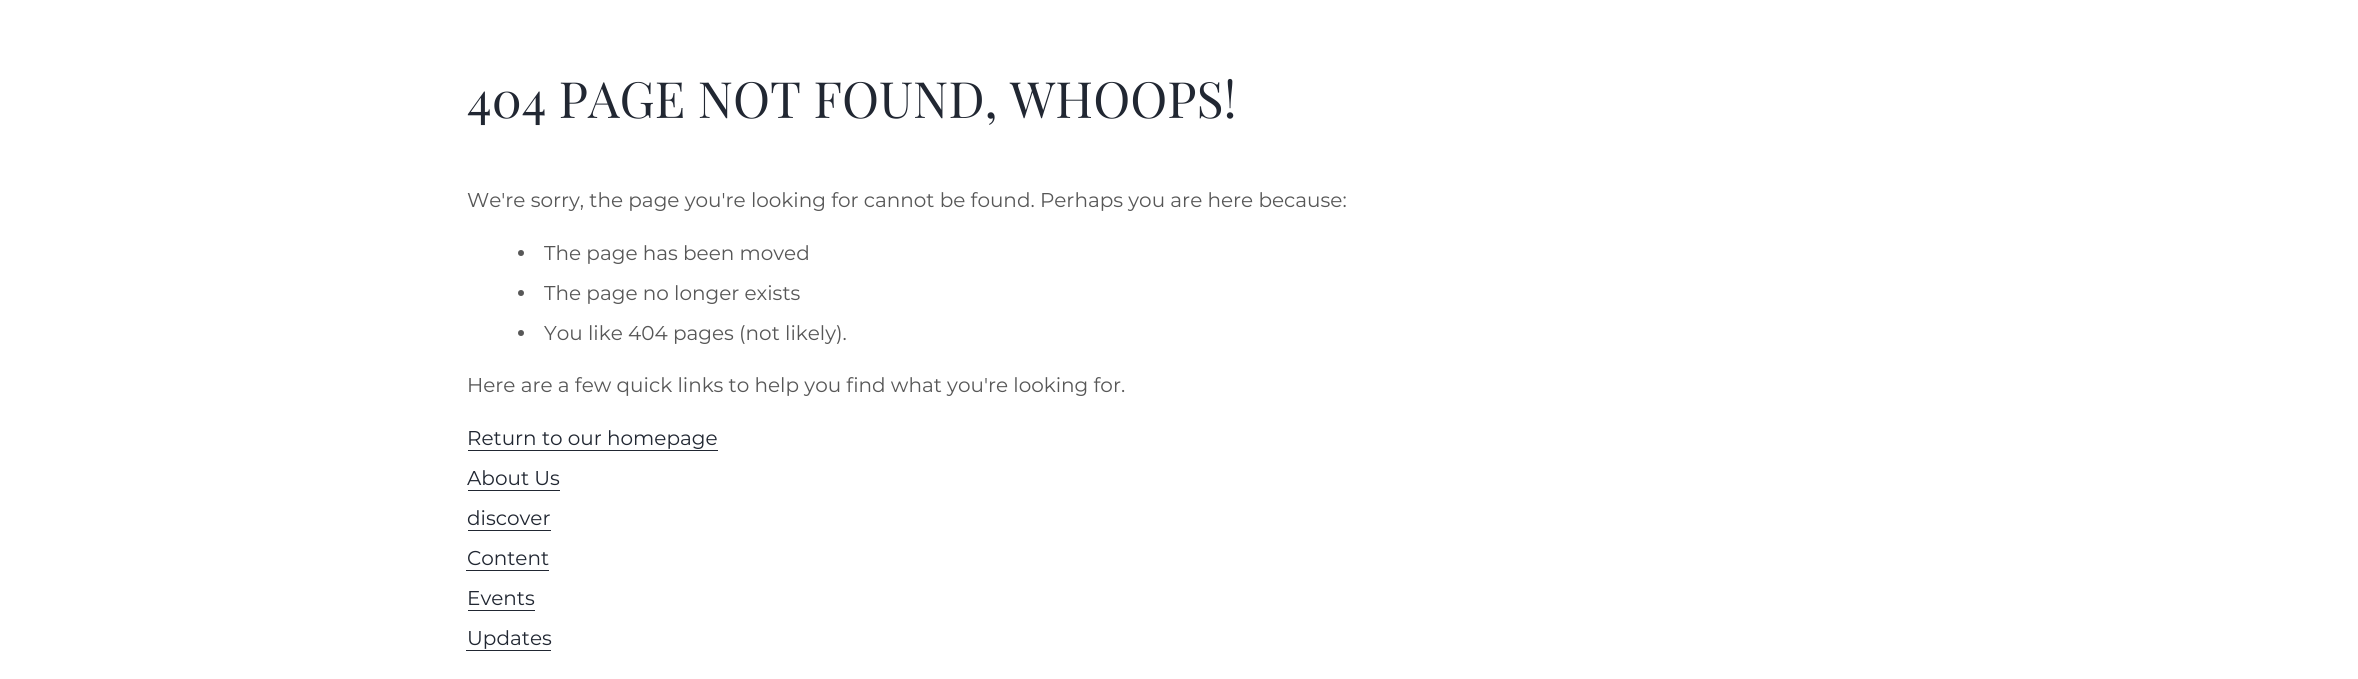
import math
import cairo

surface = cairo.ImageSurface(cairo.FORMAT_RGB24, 2358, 679)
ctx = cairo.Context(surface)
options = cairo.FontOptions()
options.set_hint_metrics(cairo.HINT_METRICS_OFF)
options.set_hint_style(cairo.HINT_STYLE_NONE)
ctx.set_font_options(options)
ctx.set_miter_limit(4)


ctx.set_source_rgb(1, 1, 1)
ctx.paint()
ctx.select_font_face("Playfair Display")
ctx.set_font_size(50)
ctx.set_source_rgb(0.129, 0.153, 0.196)
ctx.move_to(467, 118)
ctx.show_text("404 PAGE NOT FOUND, WHOOPS!")
ctx.select_font_face("Montserrat")
ctx.set_font_size(20)
ctx.set_source_rgb(0.341, 0.341, 0.341)
ctx.move_to(467, 207)
ctx.show_text("We're sorry, the page you're looking for cannot be found. Perhaps you are here because:")
ctx.new_path()
ctx.arc(521, 253, 3, 0, 2 * math.pi)
ctx.fill()
ctx.move_to(544, 260)
ctx.show_text("The page has been moved")
ctx.new_path()
ctx.arc(521, 293, 3, 0, 2 * math.pi)
ctx.fill()
ctx.move_to(544, 300)
ctx.show_text("The page no longer exists")
ctx.new_path()
ctx.arc(521, 333, 3, 0, 2 * math.pi)
ctx.fill()
ctx.move_to(544, 340)
ctx.show_text("You like 404 pages (not likely).")
ctx.move_to(467, 392)
ctx.show_text("Here are a few quick links to help you find what you're looking for.")
ctx.set_source_rgb(0.129, 0.153, 0.196)
ctx.move_to(467, 445)
ctx.show_text("Return to our homepage")
ctx.rectangle(468, 450, 250, 1)
ctx.fill()
ctx.move_to(467, 485)
ctx.show_text("About Us")
ctx.rectangle(468, 490, 92, 1)
ctx.fill()
ctx.move_to(467, 525)
ctx.show_text("discover")
ctx.rectangle(468, 530, 83, 1)
ctx.fill()
ctx.move_to(467, 565)
ctx.show_text("Content")
ctx.rectangle(466, 570, 83, 1)
ctx.fill()
ctx.move_to(467, 605)
ctx.show_text("Events")
ctx.rectangle(468, 610, 67, 1)
ctx.fill()
ctx.move_to(467, 645)
ctx.show_text("Updates")
ctx.rectangle(466, 650, 85, 1)
ctx.fill()
surface.write_to_png("page.png")
